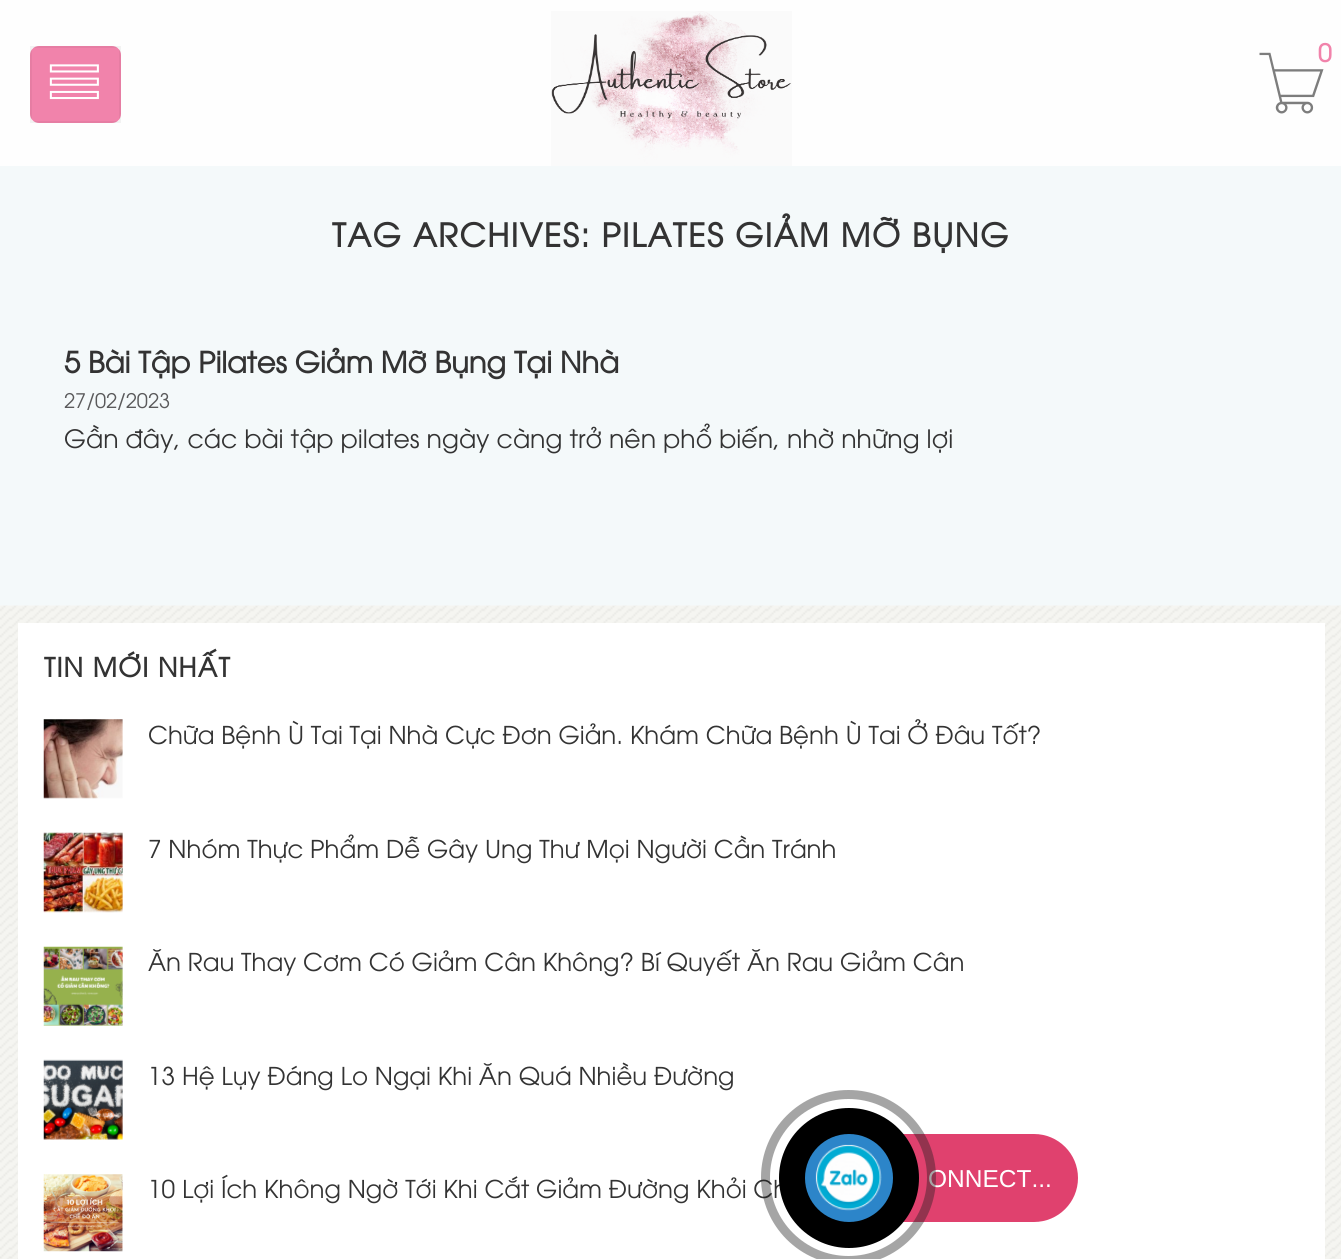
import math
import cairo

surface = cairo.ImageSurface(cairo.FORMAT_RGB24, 1341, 1259)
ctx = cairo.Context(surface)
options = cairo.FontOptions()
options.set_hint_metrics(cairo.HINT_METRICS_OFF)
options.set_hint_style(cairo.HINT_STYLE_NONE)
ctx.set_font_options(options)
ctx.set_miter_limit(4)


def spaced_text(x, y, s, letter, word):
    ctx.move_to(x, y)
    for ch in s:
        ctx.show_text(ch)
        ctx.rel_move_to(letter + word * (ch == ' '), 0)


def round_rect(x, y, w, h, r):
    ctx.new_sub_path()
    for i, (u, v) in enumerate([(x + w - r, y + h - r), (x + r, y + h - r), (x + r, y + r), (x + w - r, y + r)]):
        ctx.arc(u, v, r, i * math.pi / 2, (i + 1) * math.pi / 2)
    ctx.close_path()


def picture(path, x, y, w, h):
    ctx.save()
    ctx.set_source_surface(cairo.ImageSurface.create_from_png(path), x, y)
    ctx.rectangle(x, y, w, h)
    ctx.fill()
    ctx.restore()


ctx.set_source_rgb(0.957, 0.973, 0.98)
ctx.paint()
ctx.set_source_rgb(0.996, 0.996, 0.996)
ctx.rectangle(0, 0, 1341, 166)
ctx.fill()
ctx.set_source_rgb(0.945, 0.514, 0.671)
round_rect(30, 46, 91, 77, 9)
ctx.fill()
ctx.rectangle(31, 47, 89, 75)
ctx.set_source_rgba(0, 0, 0, 0.05)
ctx.stroke()
picture("img1.png", 49, 64, 50, 36)
picture("img2.png", 551, 11, 241, 155)
picture("img3.png", 1259, 52, 65, 62)
ctx.select_font_face("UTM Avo", cairo.FONT_SLANT_NORMAL, cairo.FONT_WEIGHT_BOLD)
ctx.set_font_size(24.5)
ctx.set_source_rgb(0.945, 0.514, 0.671)
ctx.move_to(1318, 62)
ctx.show_text("0")
ctx.set_font_size(32.2)
ctx.set_source_rgb(0.2, 0.2, 0.2)
spaced_text(332, 247, "TAG ARCHIVES: PILATES GIẢM MỠ BỤNG", 1.6, 0)
ctx.set_font_size(29)
ctx.move_to(64, 373)
ctx.show_text("5 Bài Tập Pilates Giảm Mỡ Bụng Tại Nhà")
ctx.select_font_face("UTM Avo")
ctx.set_font_size(20)
ctx.set_source_rgb(0.353, 0.353, 0.357)
ctx.move_to(64, 408)
ctx.show_text("27/02/2023")
ctx.set_font_size(25.2)
ctx.set_source_rgb(0.2, 0.2, 0.2)
ctx.move_to(64, 448)
ctx.show_text("Gần đây, các bài tập pilates ngày càng trở nên phổ biến, nhờ những lợi")
picture("img4.png", 0, 605, 1341, 654)
ctx.set_source_rgb(1, 1, 1)
ctx.rectangle(18, 623, 1307, 636)
ctx.fill()
ctx.select_font_face("UTM Avo", cairo.FONT_SLANT_NORMAL, cairo.FONT_WEIGHT_BOLD)
ctx.set_font_size(26.25)
ctx.set_source_rgb(0.2, 0.2, 0.2)
spaced_text(44, 677, "TIN MỚI NHẤT", 1.25, 0)
picture("img5.png", 43, 719, 80, 80)
ctx.select_font_face("UTM Avo")
ctx.set_font_size(24.5)
ctx.move_to(148, 744)
ctx.show_text("Chữa Bệnh Ù Tai Tại Nhà Cực Đơn Giản. Khám Chữa Bệnh Ù Tai Ở Đâu Tốt?")
picture("img6.png", 43, 832, 80, 81)
ctx.move_to(148, 858)
ctx.show_text("7 Nhóm Thực Phẩm Dễ Gây Ung Thư Mọi Người Cần Tránh")
picture("img7.png", 43, 946, 80, 80)
ctx.move_to(148, 971)
ctx.show_text("Ăn Rau Thay Cơm Có Giảm Cân Không? Bí Quyết Ăn Rau Giảm Cân")
picture("img8.png", 43, 1059, 80, 81)
ctx.move_to(148, 1085)
ctx.show_text("13 Hệ Lụy Đáng Lo Ngại Khi Ăn Quá Nhiều Đường")
picture("img9.png", 43, 1174, 80, 78)
ctx.move_to(148, 1198)
ctx.show_text("10 Lợi Ích Không Ngờ Tới Khi Cắt Giảm Đường Khỏi Ch")
ctx.set_source_rgb(0.878, 0.255, 0.431)
round_rect(805, 1134, 273, 88, 44)
ctx.fill()
ctx.select_font_face("Liberation Sans")
ctx.set_source_rgb(1, 1, 1)
ctx.move_to(928, 1187)
ctx.show_text("ONNECT...")
ctx.new_path()
ctx.arc(848.5, 1177.5, 83, 0, 2 * math.pi)
ctx.set_source_rgba(0.118, 0.118, 0.118, 0.4)
ctx.set_line_width(9)
ctx.stroke()
ctx.set_source_rgb(0, 0, 0)
ctx.arc(849, 1178, 70, 0, 2 * math.pi)
ctx.fill()
ctx.set_source_rgb(0.173, 0.522, 0.788)
ctx.arc(849, 1178, 44, 0, 2 * math.pi)
ctx.fill()
picture("img10.png", 815, 1144, 67, 67)
surface.write_to_png("page.png")
